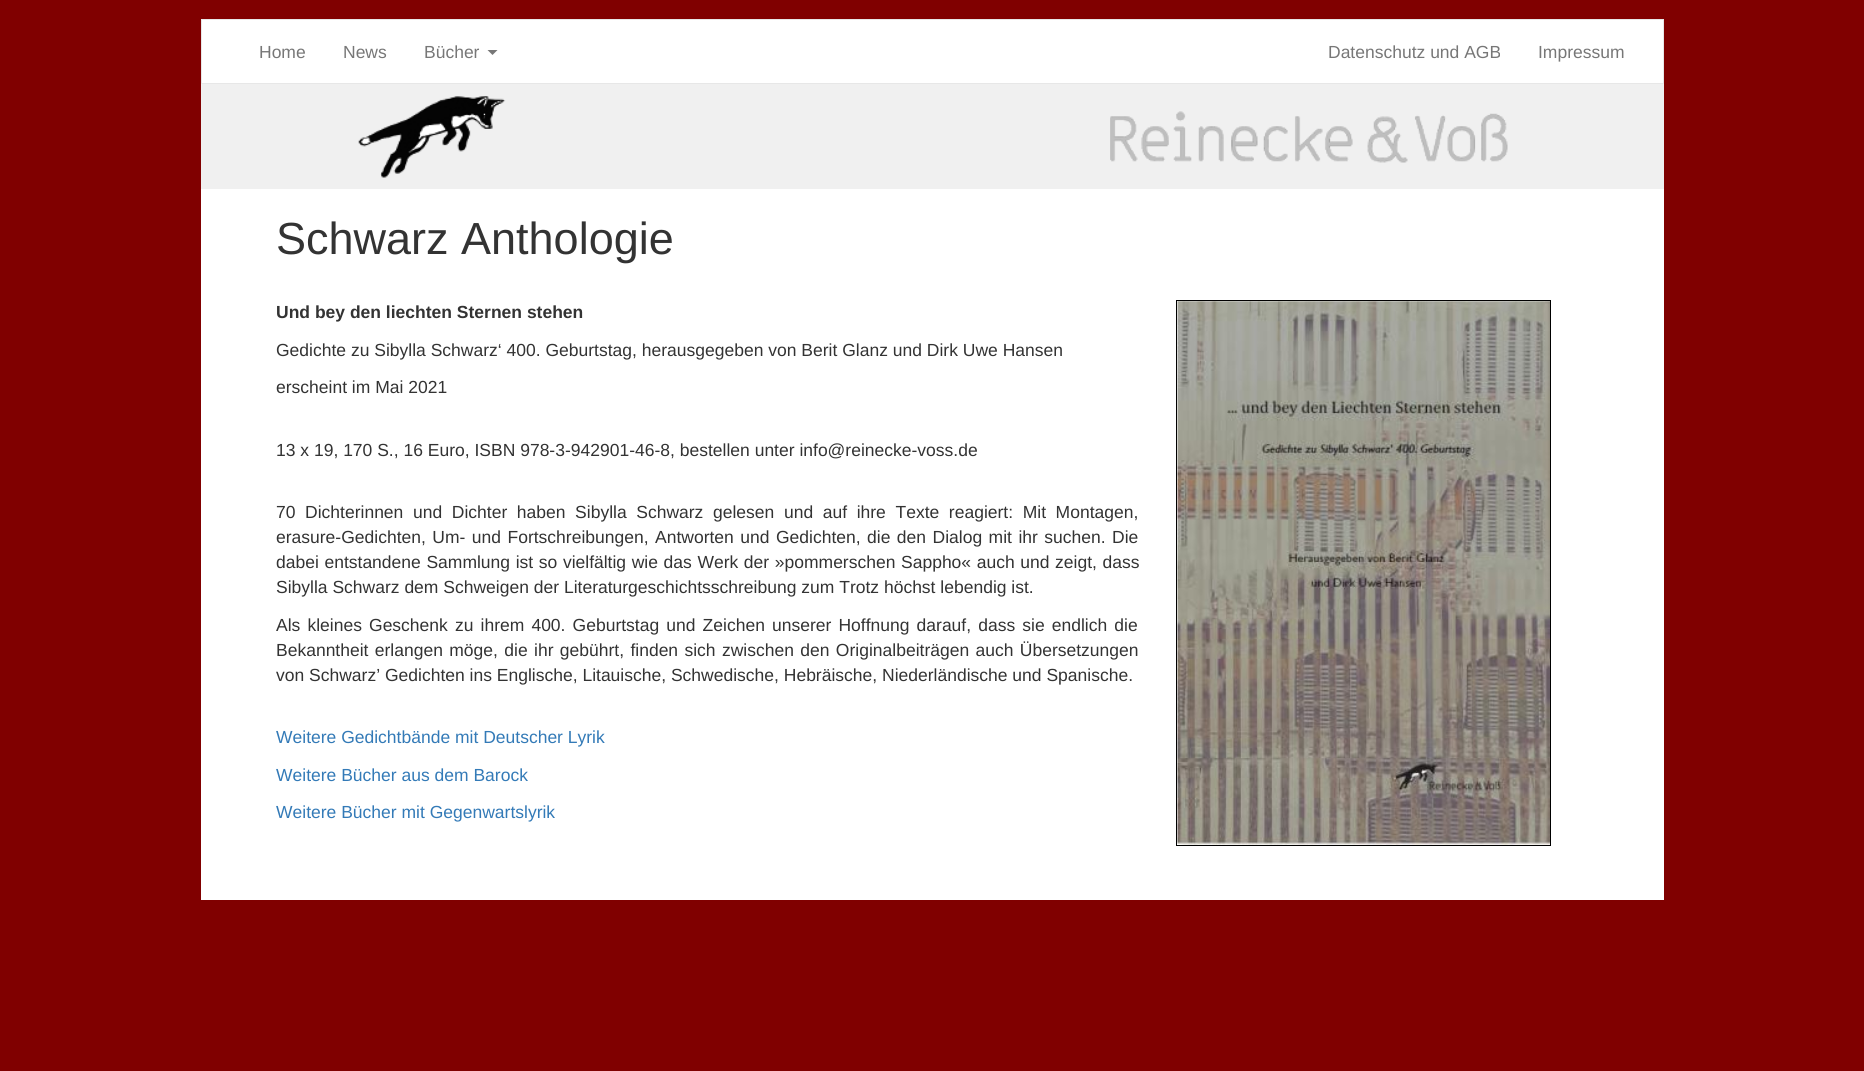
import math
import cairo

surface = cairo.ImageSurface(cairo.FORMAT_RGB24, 1864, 1071)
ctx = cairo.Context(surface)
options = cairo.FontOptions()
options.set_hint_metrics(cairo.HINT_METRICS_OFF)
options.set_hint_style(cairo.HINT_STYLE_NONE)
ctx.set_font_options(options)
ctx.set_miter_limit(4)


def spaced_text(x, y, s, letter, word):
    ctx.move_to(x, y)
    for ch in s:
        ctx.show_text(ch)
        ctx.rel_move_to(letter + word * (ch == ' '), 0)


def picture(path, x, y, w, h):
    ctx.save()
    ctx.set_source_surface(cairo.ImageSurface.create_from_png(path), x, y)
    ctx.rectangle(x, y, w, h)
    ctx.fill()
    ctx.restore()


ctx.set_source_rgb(0.502, 0, 0)
ctx.paint()
ctx.set_source_rgb(1, 1, 1)
ctx.rectangle(201.5, 19.5, 1462, 64)
ctx.fill_preserve()
ctx.set_source_rgb(0.906, 0.906, 0.906)
ctx.set_line_width(1)
ctx.stroke()
ctx.select_font_face("Liberation Sans")
ctx.set_font_size(17.5)
ctx.set_source_rgb(0.467, 0.467, 0.467)
ctx.move_to(259, 58)
ctx.show_text("Home")
ctx.move_to(343, 58)
ctx.show_text("News")
ctx.move_to(424, 58)
ctx.show_text("Bücher")
ctx.new_path()
ctx.move_to(487.5, 50)
ctx.line_to(497.5, 50)
ctx.line_to(492.5, 55)
ctx.close_path()
ctx.fill()
ctx.move_to(1328, 58)
ctx.show_text("Datenschutz und AGB")
ctx.move_to(1538, 58)
ctx.show_text("Impressum")
ctx.set_source_rgb(0.941, 0.941, 0.941)
ctx.rectangle(201, 84, 1463, 105)
ctx.fill()
picture("img1.png", 358, 96, 148, 82)
picture("img2.png", 1110, 111, 398, 52)
ctx.set_source_rgb(1, 1, 1)
ctx.rectangle(201, 189, 1463, 711)
ctx.fill()
ctx.set_font_size(45)
ctx.set_source_rgb(0.2, 0.2, 0.2)
ctx.move_to(276, 254)
ctx.show_text("Schwarz Anthologie")
ctx.select_font_face("Liberation Sans", cairo.FONT_SLANT_NORMAL, cairo.FONT_WEIGHT_BOLD)
ctx.set_font_size(17.5)
ctx.move_to(276, 318)
ctx.show_text("Und bey den liechten Sternen stehen")
ctx.select_font_face("Liberation Sans")
ctx.move_to(276, 356)
ctx.show_text("Gedichte zu Sibylla Schwarz‘ 400. Geburtstag, herausgegeben von Berit Glanz und Dirk Uwe Hansen")
ctx.move_to(276, 393)
ctx.show_text("erscheint im Mai 2021")
ctx.move_to(276, 456)
ctx.show_text("13 x 19, 170 S., 16 Euro, ISBN 978-3-942901-46-8, bestellen unter info@reinecke-voss.de")
spaced_text(276, 518, "70 Dichterinnen und Dichter haben Sibylla Schwarz gelesen und auf ihre Texte reagiert: Mit Montagen,", 0, 4.75)
spaced_text(276, 543, "erasure-Gedichten, Um- und Fortschreibungen, Antworten und Gedichten, die den Dialog mit ihr suchen. Die", 0, 1.6)
spaced_text(276, 568, "dabei entstandene Sammlung ist so vielfältig wie das Werk der »pommerschen Sappho« auch und zeigt, dass", 0, 0.75)
ctx.move_to(276, 593)
ctx.show_text("Sibylla Schwarz dem Schweigen der Literaturgeschichtsschreibung zum Trotz höchst lebendig ist.")
spaced_text(276, 631, "Als kleines Geschenk zu ihrem 400. Geburtstag und Zeichen unserer Hoffnung darauf, dass sie endlich die", 0, 2.25)
spaced_text(276, 656, "Bekanntheit erlangen möge, die ihr gebührt, finden sich zwischen den Originalbeiträgen auch Übersetzungen", 0, 1.5)
ctx.move_to(276, 681)
ctx.show_text("von Schwarz’ Gedichten ins Englische, Litauische, Schwedische, Hebräische, Niederländische und Spanische.")
ctx.set_source_rgb(0.2, 0.478, 0.718)
ctx.move_to(276, 743)
ctx.show_text("Weitere Gedichtbände mit Deutscher Lyrik")
ctx.move_to(276, 781)
ctx.show_text("Weitere Bücher aus dem Barock")
ctx.move_to(276, 818)
ctx.show_text("Weitere Bücher mit Gegenwartslyrik")
ctx.rectangle(1176.5, 300.5, 374, 545)
ctx.set_source_rgb(0, 0, 0)
ctx.stroke()
picture("img3.png", 1177, 301, 373, 544)
surface.write_to_png("page.png")
